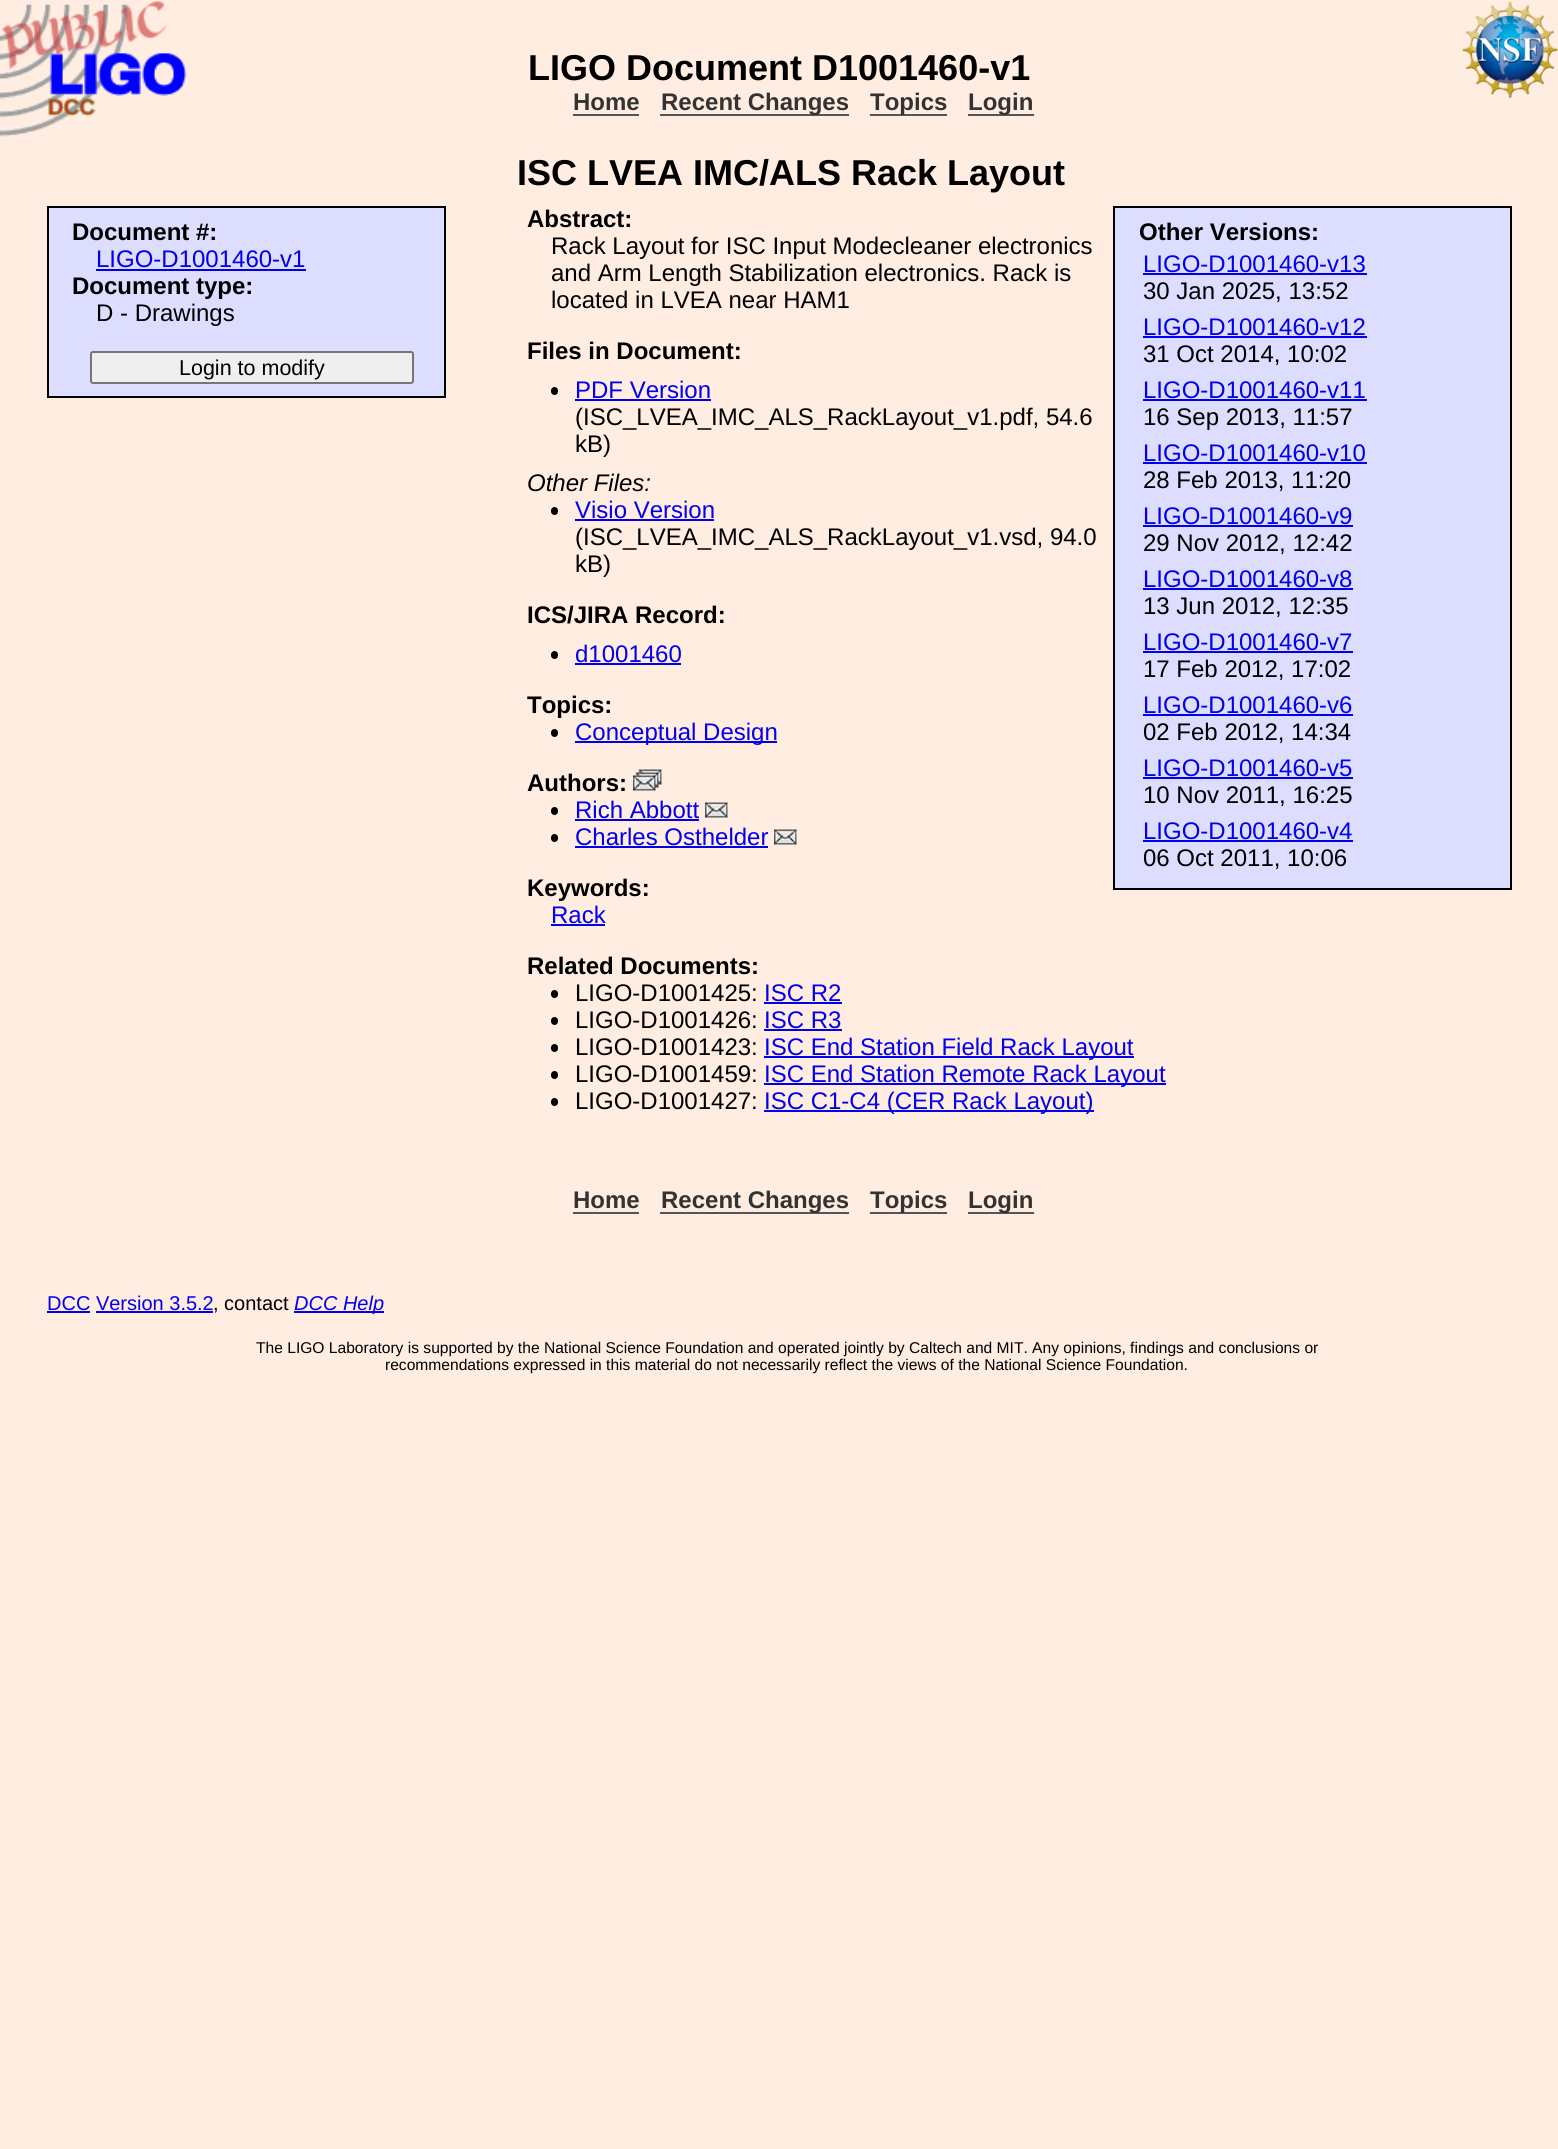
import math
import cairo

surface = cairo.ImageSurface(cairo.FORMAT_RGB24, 1558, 2149)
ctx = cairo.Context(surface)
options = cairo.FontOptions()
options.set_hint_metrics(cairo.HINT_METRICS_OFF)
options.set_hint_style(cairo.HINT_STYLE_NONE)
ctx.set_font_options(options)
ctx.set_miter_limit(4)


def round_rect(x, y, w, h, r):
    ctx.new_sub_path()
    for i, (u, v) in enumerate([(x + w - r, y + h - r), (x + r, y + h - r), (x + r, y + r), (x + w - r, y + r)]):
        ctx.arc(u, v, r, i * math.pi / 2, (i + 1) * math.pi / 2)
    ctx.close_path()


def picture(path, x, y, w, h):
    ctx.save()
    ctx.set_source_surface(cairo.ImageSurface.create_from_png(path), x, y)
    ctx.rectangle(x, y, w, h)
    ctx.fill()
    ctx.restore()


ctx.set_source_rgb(1, 0.929, 0.886)
ctx.paint()
picture("img1.png", 0, 1, 1558, 136)
ctx.select_font_face("Liberation Sans", cairo.FONT_SLANT_NORMAL, cairo.FONT_WEIGHT_BOLD)
ctx.set_font_size(36)
ctx.set_source_rgb(0, 0, 0)
ctx.move_to(528, 80)
ctx.show_text("LIGO Document D1001460-v1")
ctx.set_font_size(24)
ctx.set_source_rgb(0.2, 0.2, 0.2)
ctx.move_to(573, 110)
ctx.show_text("Home")
ctx.set_source_rgb(0.333, 0.333, 0.333)
ctx.rectangle(573, 114, 66, 2)
ctx.fill()
ctx.rectangle(660, 114, 189, 2)
ctx.fill()
ctx.set_source_rgb(0.2, 0.2, 0.2)
ctx.move_to(661, 110)
ctx.show_text("Recent Changes")
ctx.set_source_rgb(0.333, 0.333, 0.333)
ctx.rectangle(870, 114, 77, 2)
ctx.fill()
ctx.set_source_rgb(0.2, 0.2, 0.2)
ctx.move_to(870, 110)
ctx.show_text("Topics")
ctx.set_source_rgb(0.333, 0.333, 0.333)
ctx.rectangle(968, 114, 66, 2)
ctx.fill()
ctx.set_source_rgb(0.2, 0.2, 0.2)
ctx.move_to(968, 110)
ctx.show_text("Login")
ctx.set_font_size(36)
ctx.set_source_rgb(0, 0, 0)
ctx.move_to(517, 185)
ctx.show_text("ISC LVEA IMC/ALS Rack Layout")
ctx.set_source_rgb(0.867, 0.867, 1)
ctx.rectangle(48, 207, 397, 190)
ctx.fill_preserve()
ctx.set_source_rgb(0, 0, 0)
ctx.stroke()
ctx.set_font_size(24)
ctx.move_to(72, 240)
ctx.show_text("Document #:")
ctx.select_font_face("Liberation Sans")
ctx.set_source_rgb(0, 0, 0.933)
ctx.move_to(96, 267)
ctx.show_text("LIGO-D1001460-v1")
ctx.rectangle(96, 269, 210, 2)
ctx.fill()
ctx.select_font_face("Liberation Sans", cairo.FONT_SLANT_NORMAL, cairo.FONT_WEIGHT_BOLD)
ctx.set_source_rgb(0, 0, 0)
ctx.move_to(72, 294)
ctx.show_text("Document type:")
ctx.select_font_face("Liberation Sans")
ctx.move_to(96, 321)
ctx.show_text("D - Drawings")
ctx.set_source_rgb(0.937, 0.937, 0.937)
round_rect(91, 352, 322, 31, 2)
ctx.fill_preserve()
ctx.set_source_rgb(0.463, 0.463, 0.463)
ctx.stroke()
ctx.set_font_size(21.5)
ctx.set_source_rgb(0, 0, 0)
ctx.move_to(179, 375)
ctx.show_text("Login to modify")
ctx.select_font_face("Liberation Sans", cairo.FONT_SLANT_NORMAL, cairo.FONT_WEIGHT_BOLD)
ctx.set_font_size(24)
ctx.move_to(527, 227)
ctx.show_text("Abstract:")
ctx.select_font_face("Liberation Sans")
ctx.move_to(551, 254)
ctx.show_text("Rack Layout for ISC Input Modecleaner electronics")
ctx.move_to(551, 281)
ctx.show_text("and Arm Length Stabilization electronics. Rack is")
ctx.move_to(551, 308)
ctx.show_text("located in LVEA near HAM1")
ctx.set_source_rgb(0.867, 0.867, 1)
ctx.rectangle(1114, 207, 397, 682)
ctx.fill_preserve()
ctx.set_source_rgb(0, 0, 0)
ctx.stroke()
ctx.select_font_face("Liberation Sans", cairo.FONT_SLANT_NORMAL, cairo.FONT_WEIGHT_BOLD)
ctx.move_to(1139, 240)
ctx.show_text("Other Versions:")
ctx.select_font_face("Liberation Sans")
ctx.set_source_rgb(0, 0, 0.933)
ctx.move_to(1143, 272)
ctx.show_text("LIGO-D1001460-v13")
ctx.rectangle(1143, 273, 224, 2)
ctx.fill()
ctx.set_source_rgb(0, 0, 0)
ctx.move_to(1143, 299)
ctx.show_text("30 Jan 2025, 13:52")
ctx.set_source_rgb(0, 0, 0.933)
ctx.move_to(1143, 335)
ctx.show_text("LIGO-D1001460-v12")
ctx.rectangle(1143, 336, 224, 2)
ctx.fill()
ctx.set_source_rgb(0, 0, 0)
ctx.move_to(1143, 362)
ctx.show_text("31 Oct 2014, 10:02")
ctx.set_source_rgb(0, 0, 0.933)
ctx.move_to(1143, 398)
ctx.show_text("LIGO-D1001460-v11")
ctx.rectangle(1143, 399, 224, 2)
ctx.fill()
ctx.set_source_rgb(0, 0, 0)
ctx.move_to(1143, 425)
ctx.show_text("16 Sep 2013, 11:57")
ctx.set_source_rgb(0, 0, 0.933)
ctx.move_to(1143, 461)
ctx.show_text("LIGO-D1001460-v10")
ctx.rectangle(1143, 462, 224, 2)
ctx.fill()
ctx.set_source_rgb(0, 0, 0)
ctx.move_to(1143, 488)
ctx.show_text("28 Feb 2013, 11:20")
ctx.set_source_rgb(0, 0, 0.933)
ctx.move_to(1143, 524)
ctx.show_text("LIGO-D1001460-v9")
ctx.rectangle(1143, 525, 210, 2)
ctx.fill()
ctx.set_source_rgb(0, 0, 0)
ctx.move_to(1143, 551)
ctx.show_text("29 Nov 2012, 12:42")
ctx.set_source_rgb(0, 0, 0.933)
ctx.move_to(1143, 587)
ctx.show_text("LIGO-D1001460-v8")
ctx.rectangle(1143, 588, 210, 2)
ctx.fill()
ctx.set_source_rgb(0, 0, 0)
ctx.move_to(1143, 614)
ctx.show_text("13 Jun 2012, 12:35")
ctx.set_source_rgb(0, 0, 0.933)
ctx.move_to(1143, 650)
ctx.show_text("LIGO-D1001460-v7")
ctx.rectangle(1143, 651, 210, 2)
ctx.fill()
ctx.set_source_rgb(0, 0, 0)
ctx.move_to(1143, 677)
ctx.show_text("17 Feb 2012, 17:02")
ctx.set_source_rgb(0, 0, 0.933)
ctx.move_to(1143, 713)
ctx.show_text("LIGO-D1001460-v6")
ctx.rectangle(1143, 714, 210, 2)
ctx.fill()
ctx.set_source_rgb(0, 0, 0)
ctx.move_to(1143, 740)
ctx.show_text("02 Feb 2012, 14:34")
ctx.set_source_rgb(0, 0, 0.933)
ctx.move_to(1143, 776)
ctx.show_text("LIGO-D1001460-v5")
ctx.rectangle(1143, 777, 210, 2)
ctx.fill()
ctx.set_source_rgb(0, 0, 0)
ctx.move_to(1143, 803)
ctx.show_text("10 Nov 2011, 16:25")
ctx.set_source_rgb(0, 0, 0.933)
ctx.move_to(1143, 839)
ctx.show_text("LIGO-D1001460-v4")
ctx.rectangle(1143, 840, 210, 2)
ctx.fill()
ctx.set_source_rgb(0, 0, 0)
ctx.move_to(1143, 866)
ctx.show_text("06 Oct 2011, 10:06")
ctx.select_font_face("Liberation Sans", cairo.FONT_SLANT_NORMAL, cairo.FONT_WEIGHT_BOLD)
ctx.move_to(527, 359)
ctx.show_text("Files in Document:")
round_rect(551, 387, 7, 8, 3.5)
ctx.fill()
ctx.select_font_face("Liberation Sans")
ctx.set_source_rgb(0, 0, 0.933)
ctx.move_to(575, 398)
ctx.show_text("PDF Version")
ctx.rectangle(575, 399, 136, 2)
ctx.fill()
ctx.set_source_rgb(0, 0, 0)
ctx.move_to(575, 425)
ctx.show_text("(ISC_LVEA_IMC_ALS_RackLayout_v1.pdf, 54.6")
ctx.move_to(575, 452)
ctx.show_text("kB)")
ctx.select_font_face("Liberation Sans", cairo.FONT_SLANT_ITALIC)
ctx.move_to(527, 491)
ctx.show_text("Other Files:")
round_rect(551, 507, 7, 8, 3.5)
ctx.fill()
ctx.select_font_face("Liberation Sans")
ctx.set_source_rgb(0, 0, 0.933)
ctx.move_to(575, 518)
ctx.show_text("Visio Version")
ctx.rectangle(575, 519, 139, 2)
ctx.fill()
ctx.set_source_rgb(0, 0, 0)
ctx.move_to(575, 545)
ctx.show_text("(ISC_LVEA_IMC_ALS_RackLayout_v1.vsd, 94.0")
ctx.move_to(575, 572)
ctx.show_text("kB)")
ctx.select_font_face("Liberation Sans", cairo.FONT_SLANT_NORMAL, cairo.FONT_WEIGHT_BOLD)
ctx.move_to(527, 623)
ctx.show_text("ICS/JIRA Record:")
round_rect(551, 651, 7, 8, 3.5)
ctx.fill()
ctx.select_font_face("Liberation Sans")
ctx.set_source_rgb(0, 0, 0.933)
ctx.move_to(575, 662)
ctx.show_text("d1001460")
ctx.rectangle(575, 663, 106, 2)
ctx.fill()
ctx.select_font_face("Liberation Sans", cairo.FONT_SLANT_NORMAL, cairo.FONT_WEIGHT_BOLD)
ctx.set_source_rgb(0, 0, 0)
ctx.move_to(527, 713)
ctx.show_text("Topics:")
round_rect(551, 729, 7, 8, 3.5)
ctx.fill()
ctx.set_source_rgb(0, 0, 0.933)
ctx.rectangle(575, 741, 202, 2)
ctx.fill()
ctx.select_font_face("Liberation Sans")
ctx.move_to(575, 740)
ctx.show_text("Conceptual Design")
ctx.select_font_face("Liberation Sans", cairo.FONT_SLANT_NORMAL, cairo.FONT_WEIGHT_BOLD)
ctx.set_source_rgb(0, 0, 0)
ctx.move_to(527, 791)
ctx.show_text("Authors:")
picture("img2.png", 633, 769, 29, 22)
round_rect(551, 807, 7, 8, 3.5)
ctx.fill()
ctx.select_font_face("Liberation Sans")
ctx.set_source_rgb(0, 0, 0.933)
ctx.move_to(575, 818)
ctx.show_text("Rich Abbott")
ctx.rectangle(575, 819, 124, 2)
ctx.fill()
picture("img3.png", 705, 802, 23, 16)
ctx.set_source_rgb(0, 0, 0)
round_rect(551, 834, 7, 8, 3.5)
ctx.fill()
ctx.set_source_rgb(0, 0, 0.933)
ctx.move_to(575, 845)
ctx.show_text("Charles Osthelder")
ctx.rectangle(575, 846, 193, 2)
ctx.fill()
picture("img4.png", 774, 829, 23, 16)
ctx.select_font_face("Liberation Sans", cairo.FONT_SLANT_NORMAL, cairo.FONT_WEIGHT_BOLD)
ctx.set_source_rgb(0, 0, 0)
ctx.move_to(527, 896)
ctx.show_text("Keywords:")
ctx.select_font_face("Liberation Sans")
ctx.set_source_rgb(0, 0, 0.933)
ctx.move_to(551, 923)
ctx.show_text("Rack")
ctx.rectangle(551, 924, 54, 2)
ctx.fill()
ctx.select_font_face("Liberation Sans", cairo.FONT_SLANT_NORMAL, cairo.FONT_WEIGHT_BOLD)
ctx.set_source_rgb(0, 0, 0)
ctx.move_to(527, 974)
ctx.show_text("Related Documents:")
round_rect(551, 990, 7, 8, 3.5)
ctx.fill()
ctx.select_font_face("Liberation Sans")
ctx.move_to(575, 1001)
ctx.show_text("LIGO-D1001425:")
ctx.set_source_rgb(0, 0, 0.933)
ctx.move_to(764, 1001)
ctx.show_text("ISC R2")
ctx.rectangle(764, 1002, 78, 2)
ctx.fill()
ctx.set_source_rgb(0, 0, 0)
round_rect(551, 1017, 7, 8, 3.5)
ctx.fill()
ctx.move_to(575, 1028)
ctx.show_text("LIGO-D1001426:")
ctx.set_source_rgb(0, 0, 0.933)
ctx.move_to(764, 1028)
ctx.show_text("ISC R3")
ctx.rectangle(764, 1029, 78, 2)
ctx.fill()
ctx.set_source_rgb(0, 0, 0)
round_rect(551, 1044, 7, 8, 3.5)
ctx.fill()
ctx.move_to(575, 1055)
ctx.show_text("LIGO-D1001423:")
ctx.set_source_rgb(0, 0, 0.933)
ctx.rectangle(764, 1056, 370, 2)
ctx.fill()
ctx.move_to(764, 1055)
ctx.show_text("ISC End Station Field Rack Layout")
ctx.set_source_rgb(0, 0, 0)
round_rect(551, 1071, 7, 8, 3.5)
ctx.fill()
ctx.move_to(575, 1082)
ctx.show_text("LIGO-D1001459:")
ctx.set_source_rgb(0, 0, 0.933)
ctx.rectangle(764, 1083, 402, 2)
ctx.fill()
ctx.move_to(764, 1082)
ctx.show_text("ISC End Station Remote Rack Layout")
ctx.set_source_rgb(0, 0, 0)
round_rect(551, 1098, 7, 8, 3.5)
ctx.fill()
ctx.move_to(575, 1109)
ctx.show_text("LIGO-D1001427:")
ctx.set_source_rgb(0, 0, 0.933)
ctx.rectangle(764, 1110, 330, 2)
ctx.fill()
ctx.move_to(764, 1109)
ctx.show_text("ISC C1-C4 (CER Rack Layout)")
ctx.select_font_face("Liberation Sans", cairo.FONT_SLANT_NORMAL, cairo.FONT_WEIGHT_BOLD)
ctx.set_source_rgb(0.2, 0.2, 0.2)
ctx.move_to(573, 1208)
ctx.show_text("Home")
ctx.set_source_rgb(0.333, 0.333, 0.333)
ctx.rectangle(573, 1212, 66, 2)
ctx.fill()
ctx.rectangle(660, 1212, 189, 2)
ctx.fill()
ctx.set_source_rgb(0.2, 0.2, 0.2)
ctx.move_to(661, 1208)
ctx.show_text("Recent Changes")
ctx.set_source_rgb(0.333, 0.333, 0.333)
ctx.rectangle(870, 1212, 77, 2)
ctx.fill()
ctx.set_source_rgb(0.2, 0.2, 0.2)
ctx.move_to(870, 1208)
ctx.show_text("Topics")
ctx.set_source_rgb(0.333, 0.333, 0.333)
ctx.rectangle(968, 1212, 66, 2)
ctx.fill()
ctx.set_source_rgb(0.2, 0.2, 0.2)
ctx.move_to(968, 1208)
ctx.show_text("Login")
ctx.select_font_face("Liberation Sans")
ctx.set_font_size(20)
ctx.set_source_rgb(0, 0, 0.933)
ctx.move_to(47, 1310)
ctx.show_text("DCC Version 3.5.2")
ctx.rectangle(47, 1311, 43, 2)
ctx.fill()
ctx.set_source_rgb(0, 0, 0)
ctx.move_to(213, 1310)
ctx.show_text(", contact")
ctx.set_source_rgb(0, 0, 0.933)
ctx.rectangle(96, 1311, 117, 2)
ctx.fill()
ctx.rectangle(294, 1311, 90, 2)
ctx.fill()
ctx.select_font_face("Liberation Sans", cairo.FONT_SLANT_ITALIC)
ctx.move_to(294, 1310)
ctx.show_text("DCC Help")
ctx.select_font_face("Liberation Sans")
ctx.set_font_size(15.6)
ctx.set_source_rgb(0, 0, 0)
ctx.move_to(256, 1353)
ctx.show_text("The LIGO Laboratory is supported by the National Science Foundation and operated jointly by Caltech and MIT. Any opinions, findings and conclusions or")
ctx.move_to(385, 1370)
ctx.show_text("recommendations expressed in this material do not necessarily reflect the views of the National Science Foundation.")
surface.write_to_png("page.png")
